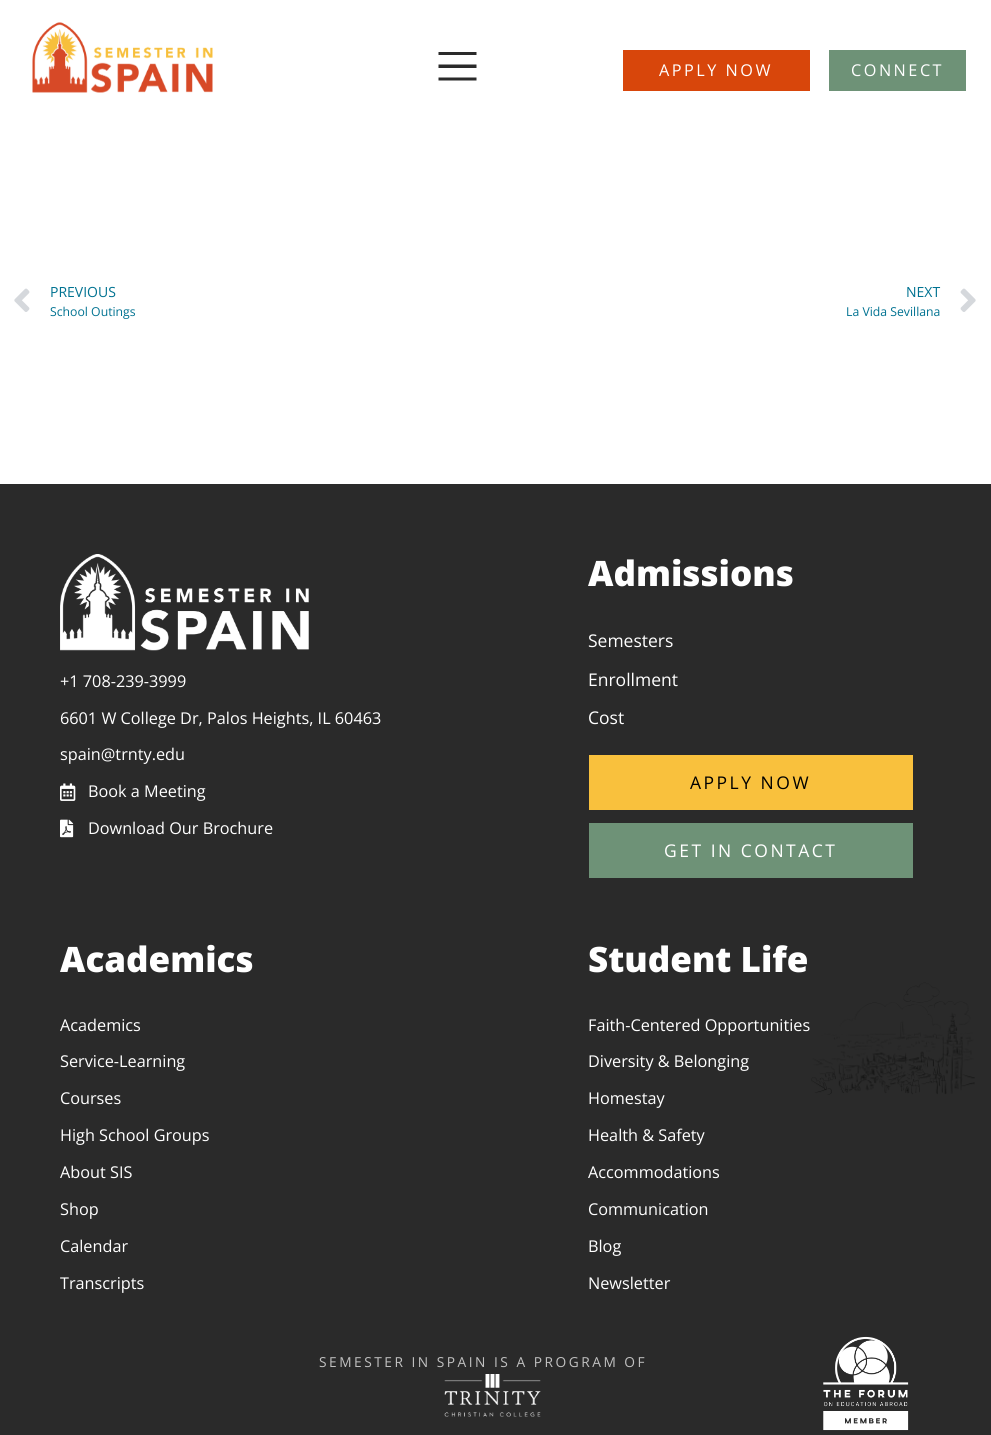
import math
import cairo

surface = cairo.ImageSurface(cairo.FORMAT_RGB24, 991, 1435)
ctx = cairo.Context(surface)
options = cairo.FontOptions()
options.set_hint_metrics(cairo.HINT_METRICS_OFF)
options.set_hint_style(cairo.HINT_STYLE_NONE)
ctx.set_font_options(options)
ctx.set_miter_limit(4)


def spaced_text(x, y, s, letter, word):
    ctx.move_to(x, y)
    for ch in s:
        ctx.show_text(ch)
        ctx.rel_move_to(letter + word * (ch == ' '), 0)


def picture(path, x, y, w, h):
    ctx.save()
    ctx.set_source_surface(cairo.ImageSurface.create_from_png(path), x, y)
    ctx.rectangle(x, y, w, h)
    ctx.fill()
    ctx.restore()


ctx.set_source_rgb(1, 1, 1)
ctx.paint()
picture("img1.png", 32, 22, 181, 71)
ctx.set_source_rgb(0.165, 0.165, 0.165)
ctx.new_path()
ctx.move_to(438.5, 52)
ctx.line_to(438.5, 55)
ctx.line_to(476.5, 55)
ctx.line_to(476.5, 52)
ctx.close_path()
ctx.move_to(438.5, 64.5)
ctx.line_to(438.5, 68)
ctx.line_to(476.5, 68)
ctx.line_to(476.5, 64.5)
ctx.close_path()
ctx.move_to(438.5, 77.5)
ctx.line_to(438.5, 80.5)
ctx.line_to(476.5, 80.5)
ctx.line_to(476.5, 77.5)
ctx.close_path()
ctx.fill()
ctx.set_source_rgb(0.847, 0.275, 0.043)
ctx.rectangle(623, 50, 187, 41)
ctx.fill()
ctx.select_font_face("Open Sans")
ctx.set_font_size(16.25)
ctx.set_source_rgb(1, 1, 1)
spaced_text(659, 76, "APPLY NOW", 2.5, 0)
ctx.set_source_rgb(0.431, 0.573, 0.467)
ctx.rectangle(829, 50, 137, 41)
ctx.fill()
ctx.set_source_rgb(1, 1, 1)
spaced_text(851, 76, "CONNECT", 2.5, 0)
picture("img2.png", 14, 288, 16, 24)
ctx.set_font_size(14)
ctx.set_source_rgb(0, 0.447, 0.569)
ctx.move_to(50, 297)
ctx.show_text("PREVIOUS")
ctx.set_font_size(12.25)
ctx.move_to(50, 316)
ctx.show_text("School Outings")
ctx.set_font_size(14)
ctx.move_to(906, 297)
ctx.show_text("NEXT")
ctx.set_font_size(12.25)
ctx.move_to(846, 316)
ctx.show_text("La Vida Sevillana")
picture("img3.png", 960, 288, 16, 24)
ctx.set_source_rgb(0.165, 0.165, 0.165)
ctx.rectangle(0, 484, 991, 951)
ctx.fill()
picture("img4.png", 60, 554, 249, 97)
ctx.set_font_size(16.25)
ctx.set_source_rgb(1, 1, 1)
ctx.move_to(60, 687)
ctx.show_text("+1 708-239-3999")
ctx.move_to(60, 724)
ctx.show_text("6601 W College Dr, Palos Heights, IL 60463")
ctx.move_to(60, 760)
ctx.show_text("spain@trnty.edu")
picture("img5.png", 60, 783, 16, 18)
ctx.move_to(88, 797)
ctx.show_text("Book a Meeting")
picture("img6.png", 60, 819, 14, 19)
ctx.move_to(88, 834)
ctx.show_text("Download Our Brochure")
ctx.select_font_face("Open Sans ExtraBold")
ctx.set_font_size(35)
ctx.move_to(588, 586)
ctx.show_text("Admissions")
ctx.select_font_face("Open Sans")
ctx.set_font_size(17.5)
ctx.move_to(588, 647)
ctx.show_text("Semesters")
ctx.move_to(588, 686)
ctx.show_text("Enrollment")
ctx.move_to(588, 724)
ctx.show_text("Cost")
ctx.set_source_rgb(0.976, 0.757, 0.239)
ctx.rectangle(589, 755, 324, 55)
ctx.fill()
ctx.set_source_rgb(0, 0, 0)
spaced_text(690, 789, "APPLY NOW", 2.5, 0)
ctx.set_source_rgb(0.431, 0.573, 0.467)
ctx.rectangle(589, 823, 324, 55)
ctx.fill()
ctx.set_source_rgb(1, 1, 1)
spaced_text(664, 857, "GET IN CONTACT", 2.5, 0)
ctx.select_font_face("Open Sans ExtraBold")
ctx.set_font_size(35)
ctx.move_to(60, 972)
ctx.show_text("Academics")
ctx.select_font_face("Open Sans")
ctx.set_font_size(16.25)
ctx.move_to(60, 1031)
ctx.show_text("Academics")
ctx.move_to(60, 1067)
ctx.show_text("Service-Learning")
ctx.move_to(60, 1104)
ctx.show_text("Courses")
ctx.move_to(60, 1141)
ctx.show_text("High School Groups")
ctx.move_to(60, 1178)
ctx.show_text("About SIS")
ctx.move_to(60, 1215)
ctx.show_text("Shop")
ctx.move_to(60, 1252)
ctx.show_text("Calendar")
ctx.move_to(60, 1289)
ctx.show_text("Transcripts")
ctx.select_font_face("Open Sans ExtraBold")
ctx.set_font_size(35)
ctx.move_to(588, 972)
ctx.show_text("Student Life")
ctx.select_font_face("Open Sans")
ctx.set_font_size(16.25)
ctx.move_to(588, 1031)
ctx.show_text("Faith-Centered Opportunities")
ctx.move_to(588, 1067)
ctx.show_text("Diversity & Belonging")
ctx.move_to(588, 1104)
ctx.show_text("Homestay")
ctx.move_to(588, 1141)
ctx.show_text("Health & Safety")
ctx.move_to(588, 1178)
ctx.show_text("Accommodations")
ctx.move_to(588, 1215)
ctx.show_text("Communication")
ctx.move_to(588, 1252)
ctx.show_text("Blog")
ctx.move_to(588, 1289)
ctx.show_text("Newsletter")
ctx.set_font_size(13.75)
ctx.set_source_rgb(0.757, 0.757, 0.757)
spaced_text(319, 1367, "SEMESTER IN SPAIN IS A PROGRAM OF", 2.5, 0)
picture("img7.png", 444, 1374, 97, 43)
picture("img8.png", 823, 1336, 86, 95)
picture("img9.png", 811, 982, 164, 113)
surface.write_to_png("page.png")
